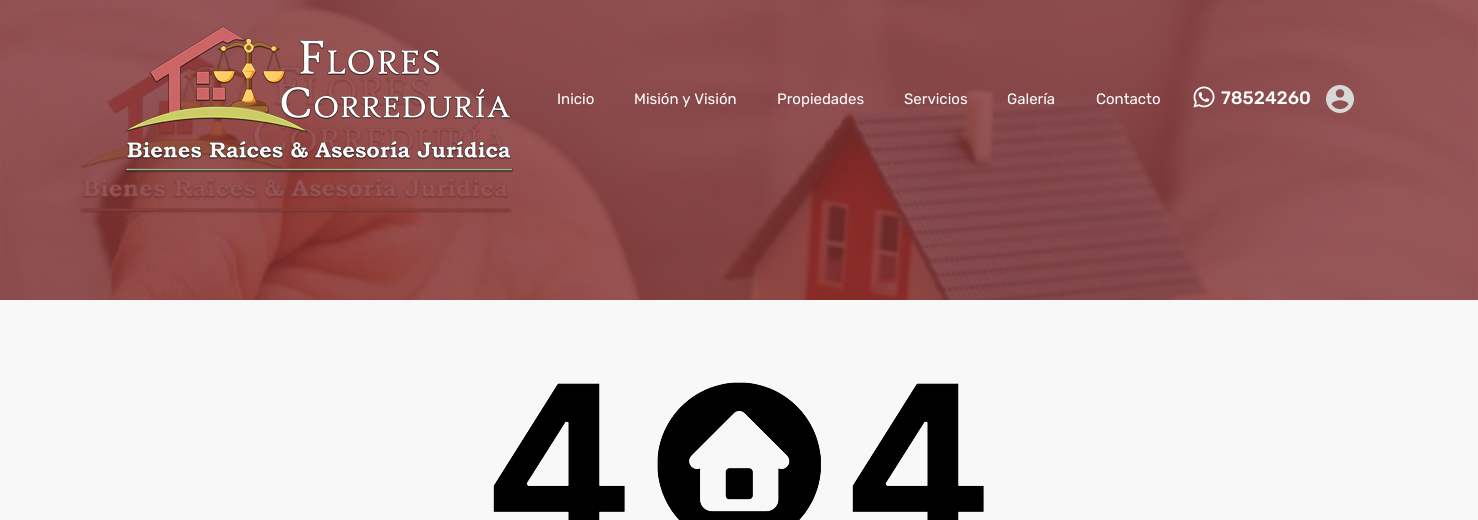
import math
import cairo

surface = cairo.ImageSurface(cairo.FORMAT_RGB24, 1478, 520)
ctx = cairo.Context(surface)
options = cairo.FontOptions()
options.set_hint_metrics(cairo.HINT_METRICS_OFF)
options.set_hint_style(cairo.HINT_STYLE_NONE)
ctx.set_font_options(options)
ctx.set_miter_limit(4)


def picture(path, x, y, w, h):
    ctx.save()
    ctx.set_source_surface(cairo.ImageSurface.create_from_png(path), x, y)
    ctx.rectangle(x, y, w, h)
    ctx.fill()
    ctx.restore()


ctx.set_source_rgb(0.969, 0.969, 0.969)
ctx.paint()
picture("img1.png", 0, 0, 1478, 300)
picture("img2.png", 125, 26, 389, 147)
ctx.select_font_face("Rubik")
ctx.set_font_size(15)
ctx.set_source_rgb(1, 1, 1)
ctx.move_to(557, 104)
ctx.show_text("Inicio")
ctx.move_to(634, 104)
ctx.show_text("Misión y Visión")
ctx.move_to(777, 104)
ctx.show_text("Propiedades")
ctx.move_to(904, 104)
ctx.show_text("Servicios")
ctx.move_to(1007, 104)
ctx.show_text("Galería")
ctx.move_to(1096, 104)
ctx.show_text("Contacto")
picture("img3.png", 1193, 86, 22, 22)
ctx.select_font_face("Rubik Medium")
ctx.set_font_size(18)
ctx.move_to(1221, 104)
ctx.show_text("78524260")
picture("img4.png", 1326, 85, 28, 28)
picture("img5.png", 493, 382, 491, 138)
surface.write_to_png("page.png")
